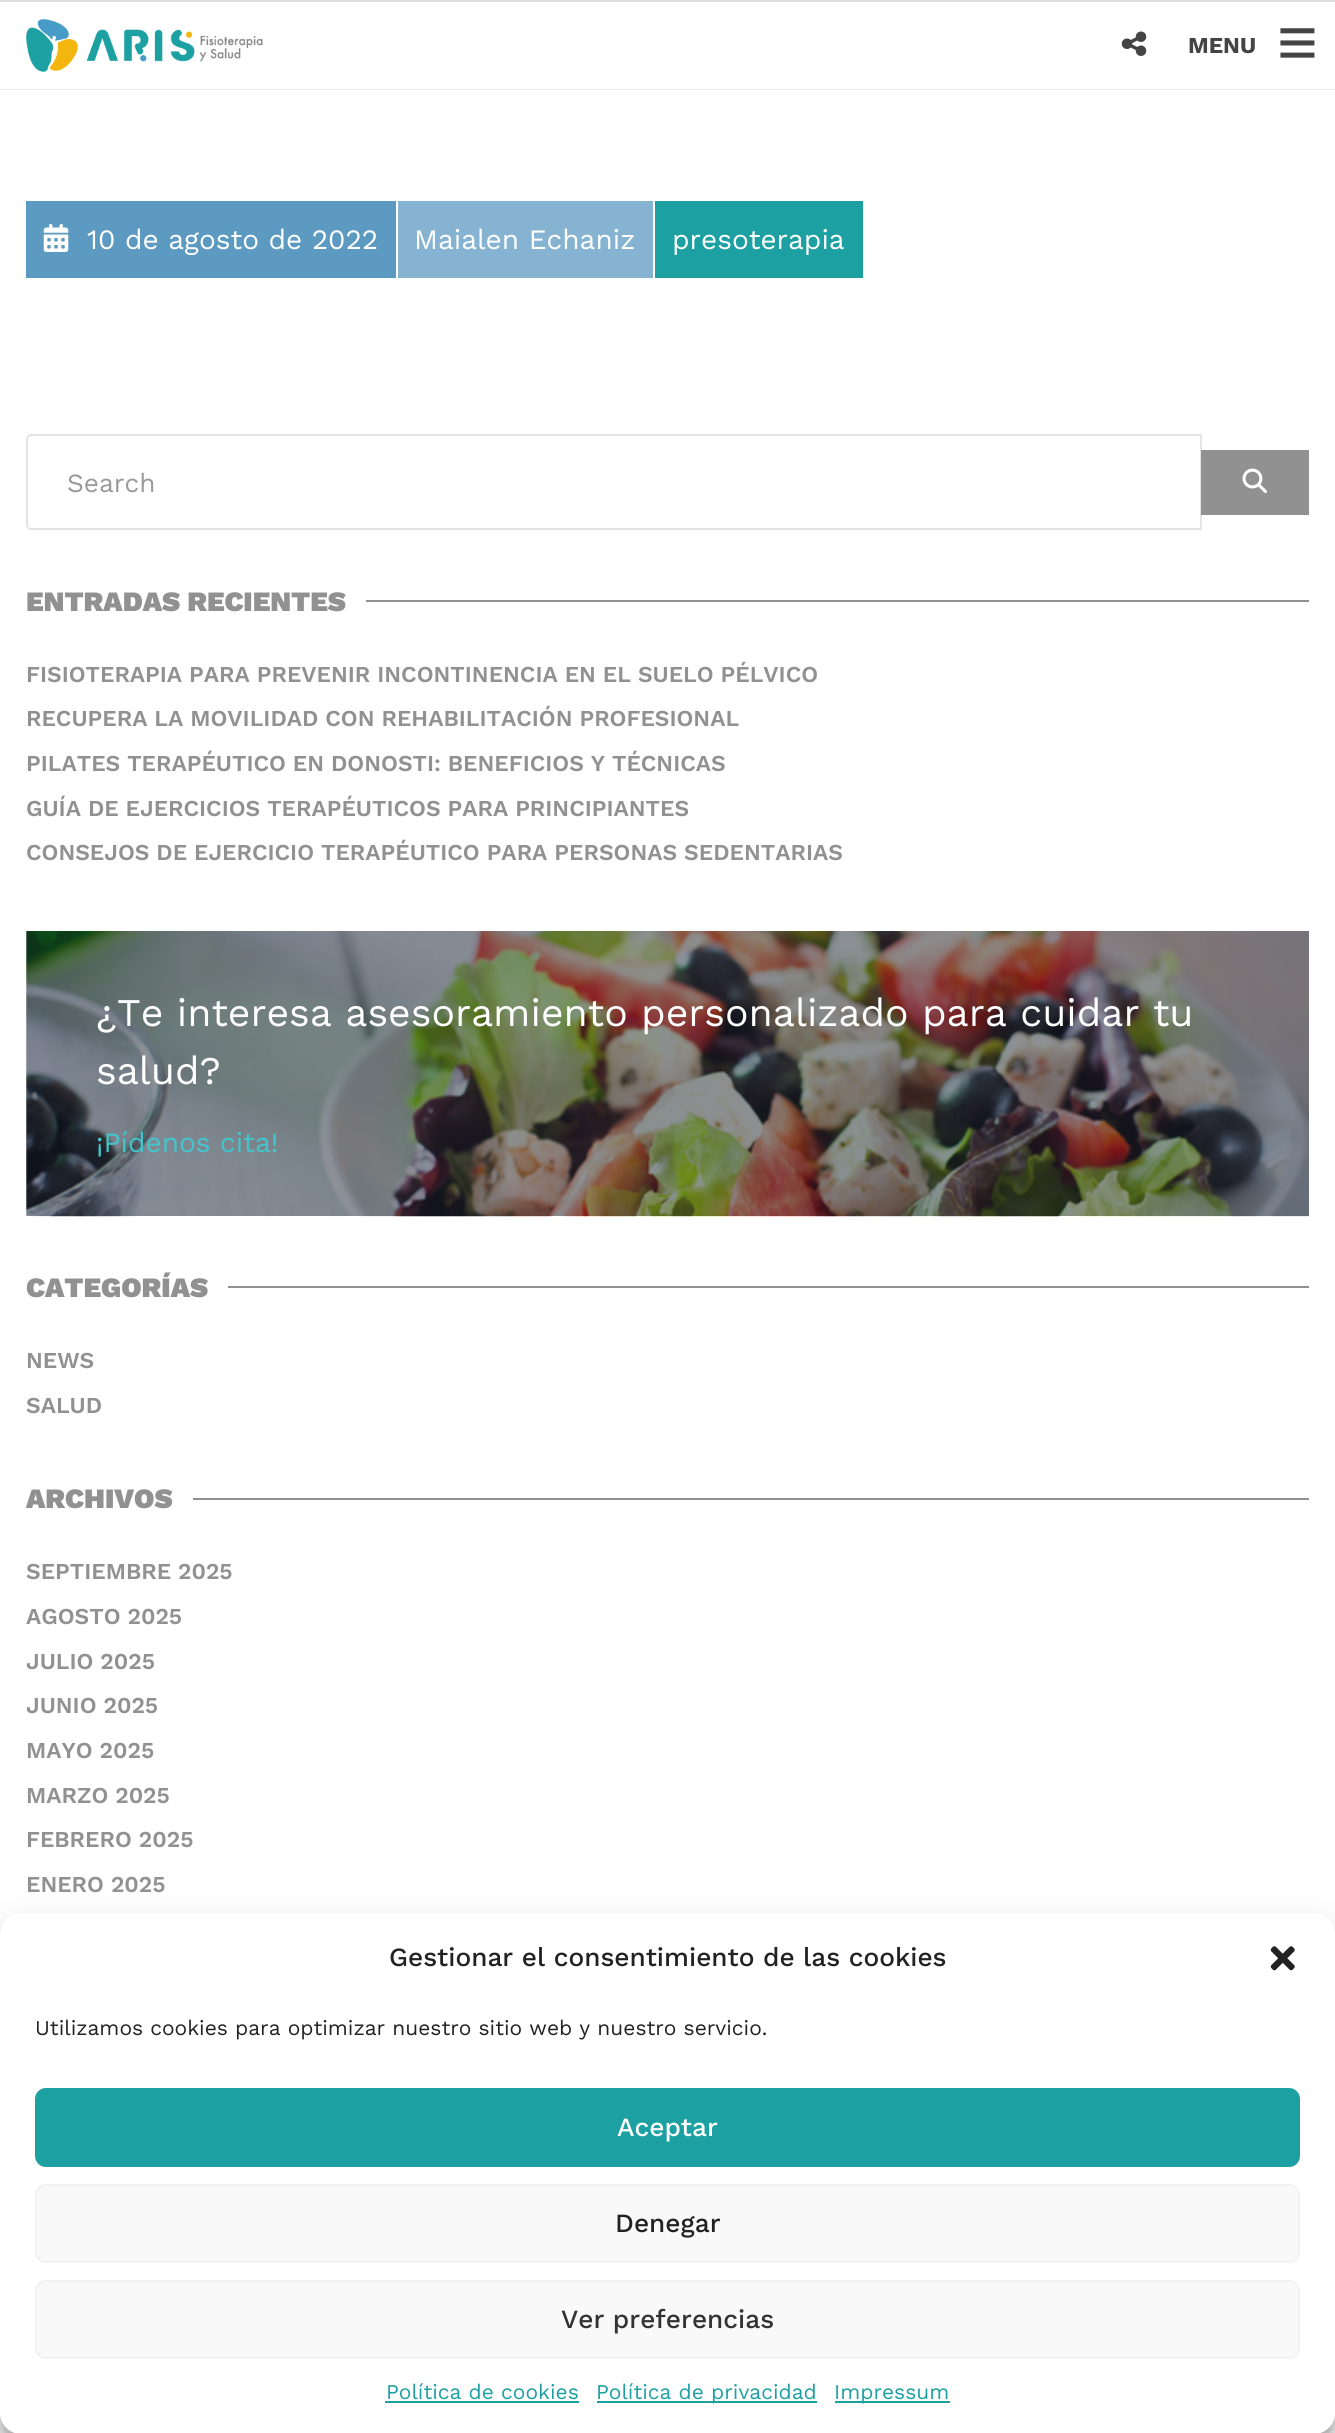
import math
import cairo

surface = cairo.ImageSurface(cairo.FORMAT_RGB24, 1335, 2433)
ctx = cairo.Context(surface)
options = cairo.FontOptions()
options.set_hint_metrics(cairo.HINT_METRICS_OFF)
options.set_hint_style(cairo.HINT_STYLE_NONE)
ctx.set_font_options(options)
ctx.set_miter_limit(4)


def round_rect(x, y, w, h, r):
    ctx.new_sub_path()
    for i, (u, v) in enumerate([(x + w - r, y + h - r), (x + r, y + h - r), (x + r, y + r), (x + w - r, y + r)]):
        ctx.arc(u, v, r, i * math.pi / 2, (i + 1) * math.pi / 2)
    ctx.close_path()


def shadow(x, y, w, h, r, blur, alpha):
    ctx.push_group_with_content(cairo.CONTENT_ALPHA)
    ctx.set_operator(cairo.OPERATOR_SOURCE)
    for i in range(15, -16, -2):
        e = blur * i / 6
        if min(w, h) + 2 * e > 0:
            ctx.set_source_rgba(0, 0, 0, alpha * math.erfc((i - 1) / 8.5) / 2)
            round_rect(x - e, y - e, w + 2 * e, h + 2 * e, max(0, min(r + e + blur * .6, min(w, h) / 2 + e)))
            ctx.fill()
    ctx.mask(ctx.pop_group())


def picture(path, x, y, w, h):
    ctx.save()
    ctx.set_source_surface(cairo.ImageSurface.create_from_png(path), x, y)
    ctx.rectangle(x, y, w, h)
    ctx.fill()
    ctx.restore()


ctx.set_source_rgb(1, 1, 1)
ctx.paint()
ctx.save()
ctx.rectangle(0, 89, 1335, 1)
ctx.clip()
ctx.set_source_rgb(0, 0, 0)
shadow(0, 0, 1335, 89, 0, 1, 0.2)
ctx.restore()
ctx.set_source_rgb(0.867, 0.867, 0.867)
ctx.rectangle(0, 0, 1335, 2)
ctx.fill()
picture("img1.png", 26, 19, 237, 53)
picture("img2.png", 1121, 31, 26, 25)
ctx.select_font_face("Work Sans", cairo.FONT_SLANT_NORMAL, cairo.FONT_WEIGHT_BOLD)
ctx.set_font_size(22.75)
ctx.set_source_rgb(0.267, 0.267, 0.267)
ctx.move_to(1188, 53)
ctx.show_text("MENU")
ctx.select_font_face("Liberation Sans", cairo.FONT_SLANT_NORMAL, cairo.FONT_WEIGHT_BOLD)
ctx.set_font_size(70)
ctx.move_to(1277, 66)
ctx.show_text("≡")
ctx.set_source_rgb(0.361, 0.604, 0.761)
ctx.rectangle(26, 201, 370, 77)
ctx.fill()
picture("img3.png", 43, 224, 26, 28)
ctx.select_font_face("Work Sans")
ctx.set_font_size(28)
ctx.set_source_rgb(1, 1, 1)
ctx.move_to(87, 249)
ctx.show_text("10 de agosto de 2022")
ctx.set_source_rgb(0.522, 0.702, 0.82)
ctx.rectangle(398, 201, 255, 77)
ctx.fill()
ctx.set_source_rgb(1, 1, 1)
ctx.move_to(414, 249)
ctx.show_text("Maialen Echaniz")
ctx.set_source_rgb(0.11, 0.627, 0.635)
ctx.rectangle(655, 201, 208, 77)
ctx.fill()
ctx.set_source_rgb(1, 1, 1)
ctx.move_to(672, 249)
ctx.show_text("presoterapia")
ctx.new_path()
ctx.move_to(31, 435)
ctx.line_to(1201, 435)
ctx.line_to(1201, 529)
ctx.line_to(31, 529)
ctx.curve_to(29, 529, 27, 527, 27, 525)
ctx.line_to(27, 439)
ctx.curve_to(27, 437, 29, 435, 31, 435)
ctx.close_path()
ctx.set_source_rgb(0.894, 0.894, 0.894)
ctx.stroke()
ctx.set_font_size(26.25)
ctx.set_source_rgb(0.6, 0.6, 0.6)
ctx.move_to(67, 492)
ctx.show_text("Search")
ctx.set_source_rgb(0.569, 0.569, 0.569)
ctx.rectangle(1201, 450, 108, 65)
ctx.fill()
picture("img4.png", 1242, 468, 25, 25)
ctx.select_font_face("Work Sans Black")
ctx.set_font_size(28)
ctx.move_to(26, 611)
ctx.show_text("ENTRADAS RECIENTES")
ctx.rectangle(366, 600, 943, 2)
ctx.fill()
ctx.select_font_face("Work Sans SemiBold")
ctx.set_font_size(22.75)
ctx.move_to(26, 682)
ctx.show_text("FISIOTERAPIA PARA PREVENIR INCONTINENCIA EN EL SUELO PÉLVICO")
ctx.move_to(26, 726)
ctx.show_text("RECUPERA LA MOVILIDAD CON REHABILITACIÓN PROFESIONAL")
ctx.move_to(26, 771)
ctx.show_text("PILATES TERAPÉUTICO EN DONOSTI: BENEFICIOS Y TÉCNICAS")
ctx.move_to(26, 816)
ctx.show_text("GUÍA DE EJERCICIOS TERAPÉUTICOS PARA PRINCIPIANTES")
ctx.move_to(26, 860)
ctx.show_text("CONSEJOS DE EJERCICIO TERAPÉUTICO PARA PERSONAS SEDENTARIAS")
picture("img5.png", 26, 931, 1283, 286)
ctx.select_font_face("Work Sans")
ctx.set_font_size(39.2)
ctx.set_source_rgb(1, 1, 1)
ctx.move_to(96, 1026)
ctx.show_text("¿Te interesa asesoramiento personalizado para cuidar tu")
ctx.move_to(96, 1084)
ctx.show_text("salud?")
ctx.set_font_size(28)
ctx.set_source_rgb(0.259, 0.776, 0.796)
ctx.move_to(96, 1152)
ctx.show_text("¡Pídenos cita!")
ctx.select_font_face("Work Sans Black")
ctx.set_source_rgb(0.569, 0.569, 0.569)
ctx.move_to(26, 1297)
ctx.show_text("CATEGORÍAS")
ctx.rectangle(228, 1286, 1081, 2)
ctx.fill()
ctx.select_font_face("Work Sans SemiBold")
ctx.set_font_size(22.75)
ctx.move_to(26, 1368)
ctx.show_text("NEWS")
ctx.move_to(26, 1413)
ctx.show_text("SALUD")
ctx.select_font_face("Work Sans Black")
ctx.set_font_size(28)
ctx.move_to(26, 1508)
ctx.show_text("ARCHIVOS")
ctx.rectangle(193, 1498, 1116, 2)
ctx.fill()
ctx.select_font_face("Work Sans SemiBold")
ctx.set_font_size(22.75)
ctx.move_to(26, 1579)
ctx.show_text("SEPTIEMBRE 2025")
ctx.move_to(26, 1624)
ctx.show_text("AGOSTO 2025")
ctx.move_to(26, 1669)
ctx.show_text("JULIO 2025")
ctx.move_to(26, 1713)
ctx.show_text("JUNIO 2025")
ctx.move_to(26, 1758)
ctx.show_text("MAYO 2025")
ctx.move_to(26, 1803)
ctx.show_text("MARZO 2025")
ctx.move_to(26, 1847)
ctx.show_text("FEBRERO 2025")
ctx.move_to(26, 1892)
ctx.show_text("ENERO 2025")
ctx.set_source_rgb(0, 0, 0)
shadow(0, 1923, 1335, 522, 21, 5, 0.23)
shadow(0, 1930, 1335, 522, 21, 17.5, 0.19)
ctx.set_source_rgb(1, 1, 1)
round_rect(0, 1913, 1335, 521, 21)
ctx.fill()
ctx.select_font_face("Work Sans Medium")
ctx.set_font_size(26.25)
ctx.set_source_rgb(0.133, 0.133, 0.133)
ctx.move_to(389, 1966)
ctx.show_text("Gestionar el consentimiento de las cookies")
picture("img6.png", 1270, 1946, 25, 25)
ctx.select_font_face("Work Sans")
ctx.set_font_size(21)
ctx.move_to(35, 2035)
ctx.show_text("Utilizamos cookies para optimizar nuestro sitio web y nuestro servicio.")
ctx.set_source_rgb(0.11, 0.627, 0.635)
round_rect(36, 2089, 1263, 77, 10)
ctx.fill_preserve()
ctx.stroke()
ctx.select_font_face("Work Sans Medium")
ctx.set_font_size(26.25)
ctx.set_source_rgb(1, 1, 1)
ctx.move_to(617, 2136)
ctx.show_text("Aceptar")
ctx.set_source_rgb(0.976, 0.976, 0.976)
round_rect(36, 2185, 1263, 77, 10)
ctx.fill_preserve()
ctx.set_source_rgb(0.949, 0.949, 0.949)
ctx.stroke()
ctx.set_source_rgb(0.133, 0.133, 0.133)
ctx.move_to(615, 2232)
ctx.show_text("Denegar")
ctx.set_source_rgb(0.976, 0.976, 0.976)
round_rect(36, 2281, 1263, 77, 10)
ctx.fill_preserve()
ctx.set_source_rgb(0.949, 0.949, 0.949)
ctx.stroke()
ctx.set_source_rgb(0.2, 0.2, 0.2)
ctx.move_to(561, 2328)
ctx.show_text("Ver preferencias")
ctx.select_font_face("Work Sans")
ctx.set_font_size(21)
ctx.set_source_rgb(0.11, 0.627, 0.635)
ctx.move_to(386, 2399)
ctx.show_text("Política de cookies")
ctx.rectangle(385, 2401, 194, 2)
ctx.fill()
ctx.rectangle(597, 2401, 220, 2)
ctx.fill()
ctx.move_to(596, 2399)
ctx.show_text("Política de privacidad")
ctx.rectangle(835, 2401, 115, 2)
ctx.fill()
ctx.move_to(834, 2399)
ctx.show_text("Impressum")
surface.write_to_png("page.png")
